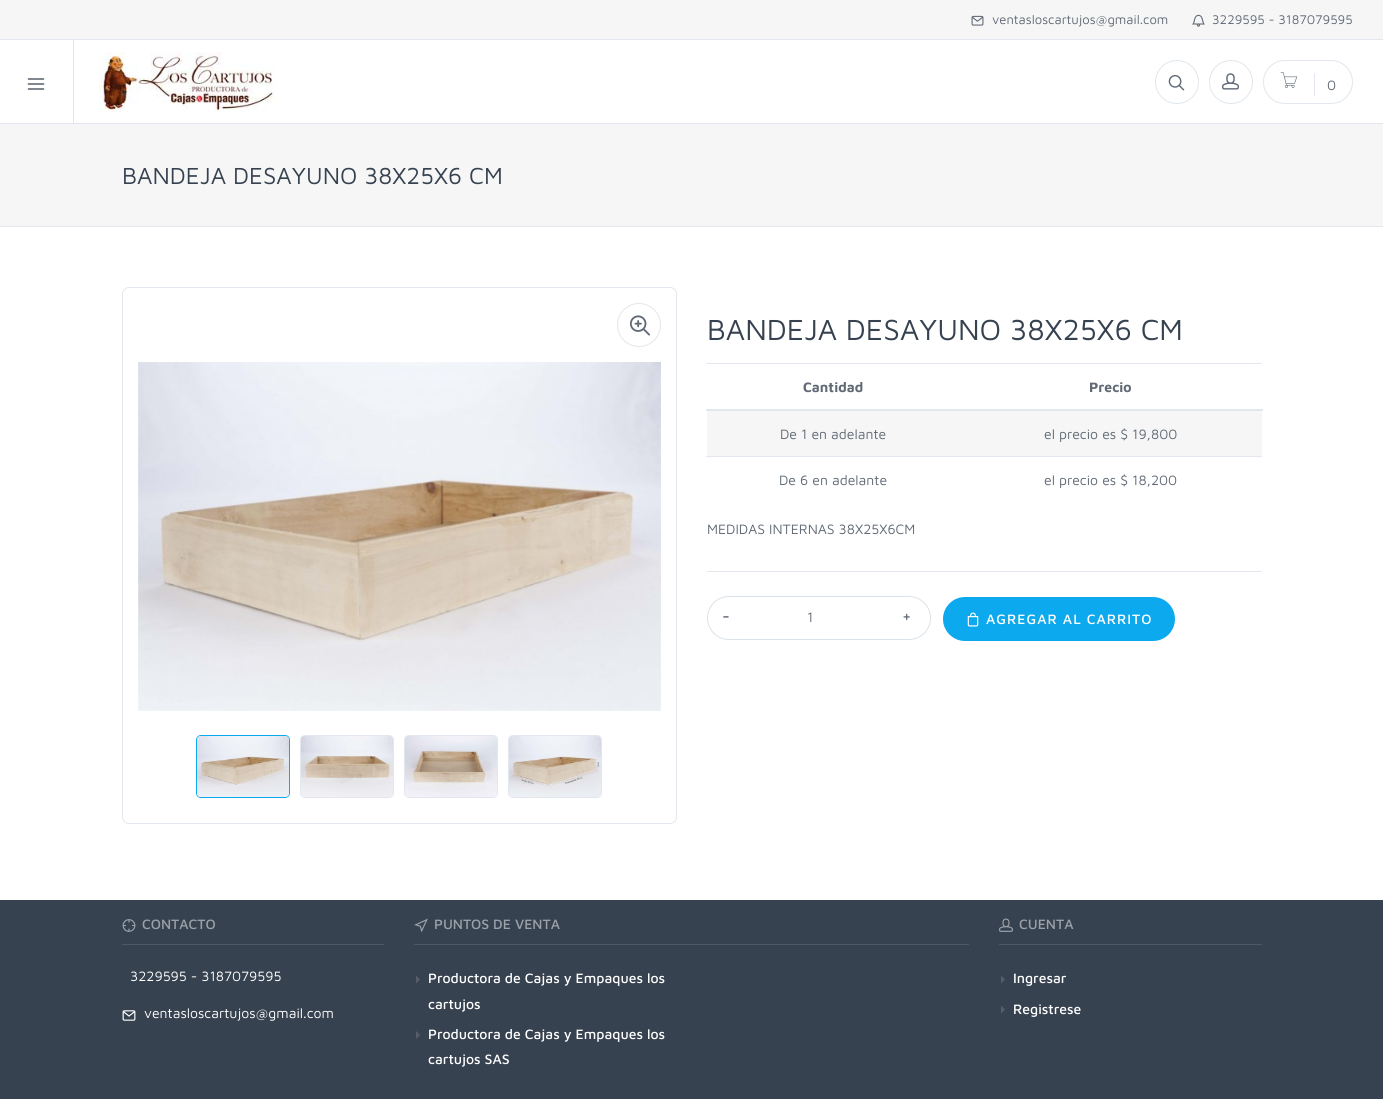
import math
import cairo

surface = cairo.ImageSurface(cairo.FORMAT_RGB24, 1383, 1099)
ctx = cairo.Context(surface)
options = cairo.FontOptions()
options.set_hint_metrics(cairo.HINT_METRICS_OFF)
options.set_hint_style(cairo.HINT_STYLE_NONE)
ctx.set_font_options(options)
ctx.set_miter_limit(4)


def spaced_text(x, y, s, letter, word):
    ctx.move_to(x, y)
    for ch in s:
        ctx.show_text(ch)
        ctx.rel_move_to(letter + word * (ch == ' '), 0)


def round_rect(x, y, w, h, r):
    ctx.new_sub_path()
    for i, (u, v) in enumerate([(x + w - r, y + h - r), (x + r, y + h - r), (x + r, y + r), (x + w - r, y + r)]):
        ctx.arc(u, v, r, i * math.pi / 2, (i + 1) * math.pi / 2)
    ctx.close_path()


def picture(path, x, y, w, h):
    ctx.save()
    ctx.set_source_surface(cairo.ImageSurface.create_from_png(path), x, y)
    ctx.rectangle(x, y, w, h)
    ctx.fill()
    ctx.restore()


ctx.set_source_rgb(1, 1, 1)
ctx.paint()
ctx.set_source_rgb(0.961, 0.961, 0.961)
ctx.rectangle(0, 0, 1383, 39)
ctx.fill()
ctx.set_source_rgb(0.882, 0.906, 0.925)
ctx.rectangle(0, 39, 1383, 1)
ctx.fill()
picture("img1.png", 971, 15, 13, 11)
ctx.select_font_face("Maven Pro")
ctx.set_font_size(13)
ctx.set_source_rgb(0.376, 0.412, 0.459)
ctx.move_to(992, 24)
ctx.show_text("ventasloscartujos@gmail.com")
picture("img2.png", 1192, 14, 13, 13)
ctx.move_to(1212, 24)
ctx.show_text("3229595 - 3187079595")
ctx.set_source_rgb(0.882, 0.906, 0.925)
ctx.rectangle(0, 123, 1383, 1)
ctx.fill()
ctx.rectangle(73, 40, 1, 84)
ctx.fill()
picture("img3.png", 27, 78, 18, 12)
picture("img4.png", 99, 52, 176, 60)
ctx.arc(1177, 82, 21.5, 0, 2 * math.pi)
ctx.set_line_width(1)
ctx.stroke()
picture("img5.png", 1168, 75, 17, 16)
ctx.arc(1231, 82, 21.5, 0, 2 * math.pi)
ctx.stroke()
picture("img6.png", 1222, 73, 17, 17)
round_rect(1263.5, 60.5, 89, 43, 21.5)
ctx.stroke()
picture("img7.png", 1280, 72, 18, 16)
ctx.rectangle(1314, 73, 1, 23)
ctx.fill()
ctx.set_font_size(14)
ctx.set_source_rgb(0.376, 0.412, 0.459)
ctx.move_to(1327, 90)
ctx.show_text("0")
ctx.set_source_rgb(0.961, 0.961, 0.961)
ctx.rectangle(0, 124, 1383, 102)
ctx.fill()
ctx.set_source_rgb(0.882, 0.906, 0.925)
ctx.rectangle(0, 226, 1383, 1)
ctx.fill()
ctx.set_font_size(24)
ctx.set_source_rgb(0.216, 0.259, 0.314)
ctx.move_to(122, 184)
ctx.show_text("BANDEJA DESAYUNO 38X25X6 CM")
round_rect(122.5, 287.5, 554, 536, 6.5)
ctx.set_source_rgb(0.882, 0.906, 0.925)
ctx.stroke()
ctx.arc(639, 325, 21.5, 0, 2 * math.pi)
ctx.stroke()
picture("img8.png", 629, 315, 21, 21)
picture("img9.png", 138, 362, 523, 349)
round_rect(196.5, 735.5, 93, 62, 4.5)
ctx.set_source_rgb(0.051, 0.663, 0.937)
ctx.stroke()
picture("img10.png", 197, 736, 92, 61)
round_rect(300.5, 735.5, 93, 62, 4.5)
ctx.set_source_rgb(0.882, 0.906, 0.925)
ctx.stroke()
picture("img11.png", 301, 736, 92, 61)
round_rect(404.5, 735.5, 93, 62, 4.5)
ctx.stroke()
picture("img12.png", 405, 736, 92, 61)
round_rect(508.5, 735.5, 93, 62, 4.5)
ctx.stroke()
picture("img13.png", 509, 736, 92, 61)
ctx.set_font_size(30)
ctx.set_source_rgb(0.216, 0.259, 0.314)
ctx.move_to(707, 340)
ctx.show_text("BANDEJA DESAYUNO 38X25X6 CM")
ctx.select_font_face("Maven Pro", cairo.FONT_SLANT_NORMAL, cairo.FONT_WEIGHT_BOLD)
ctx.set_font_size(14)
ctx.set_source_rgb(0.376, 0.412, 0.459)
ctx.move_to(803, 392)
ctx.show_text("Cantidad")
ctx.set_source_rgb(0.882, 0.906, 0.925)
ctx.rectangle(706, 363, 556, 1)
ctx.fill()
ctx.rectangle(706, 409, 557, 2)
ctx.fill()
ctx.set_source_rgb(0.376, 0.412, 0.459)
ctx.move_to(1089, 392)
ctx.show_text("Precio")
ctx.set_source_rgb(0.961, 0.961, 0.961)
ctx.rectangle(707, 411, 555, 45)
ctx.fill()
ctx.select_font_face("Maven Pro")
ctx.set_source_rgb(0.376, 0.412, 0.459)
ctx.move_to(780, 439)
ctx.show_text("De 1 en adelante")
ctx.move_to(1044, 439)
ctx.show_text("el precio es $ 19,800")
ctx.move_to(779, 485)
ctx.show_text("De 6 en adelante")
ctx.set_source_rgb(0.882, 0.906, 0.925)
ctx.rectangle(706, 456, 556, 1)
ctx.fill()
ctx.set_source_rgb(0.376, 0.412, 0.459)
ctx.move_to(1044, 485)
ctx.show_text("el precio es $ 18,200")
ctx.move_to(707, 534)
ctx.show_text("MEDIDAS INTERNAS 38X25X6CM")
ctx.set_source_rgb(0.882, 0.906, 0.925)
ctx.rectangle(707, 571, 555, 1)
ctx.fill()
round_rect(707.5, 596.5, 223, 43, 21.5)
ctx.set_source_rgb(0.859, 0.886, 0.91)
ctx.stroke()
ctx.select_font_face("Maven Pro Medium")
ctx.set_font_size(17)
ctx.set_source_rgb(0.376, 0.412, 0.459)
spaced_text(722, 622, "-", 1, 0)
ctx.select_font_face("Maven Pro")
ctx.set_font_size(14)
ctx.move_to(807, 622)
ctx.show_text("1")
ctx.select_font_face("Maven Pro Medium")
ctx.set_font_size(17)
spaced_text(902, 622, "+", 1, 0)
ctx.set_source_rgb(0.051, 0.663, 0.937)
round_rect(943, 597, 232, 44, 22)
ctx.fill()
picture("img14.png", 967, 612, 12, 15)
ctx.set_font_size(14)
ctx.set_source_rgb(1, 1, 1)
spaced_text(986, 624, "AGREGAR AL CARRITO", 1, 0)
ctx.set_source_rgb(0.216, 0.259, 0.314)
ctx.rectangle(0, 900, 1383, 199)
ctx.fill()
ctx.set_source_rgb(0.31, 0.349, 0.396)
ctx.rectangle(122, 944, 262, 1)
ctx.fill()
picture("img15.png", 122, 919, 14, 13)
ctx.set_source_rgb(0.608, 0.631, 0.659)
ctx.move_to(142, 929)
ctx.show_text("CONTACTO")
ctx.select_font_face("Maven Pro")
ctx.set_source_rgb(1, 1, 1)
ctx.move_to(130, 981)
ctx.show_text("3229595 - 3187079595")
picture("img16.png", 122, 1010, 14, 11)
ctx.move_to(144, 1018)
ctx.show_text("ventasloscartujos@gmail.com")
ctx.set_source_rgb(0.31, 0.349, 0.396)
ctx.rectangle(414, 944, 555, 1)
ctx.fill()
picture("img17.png", 414, 918, 14, 15)
ctx.select_font_face("Maven Pro Medium")
ctx.set_source_rgb(0.608, 0.631, 0.659)
ctx.move_to(434, 929)
ctx.show_text("PUNTOS DE VENTA")
ctx.set_source_rgb(0.333, 0.369, 0.416)
ctx.new_path()
ctx.move_to(416, 983.5)
ctx.line_to(416, 975.5)
ctx.line_to(420, 979.5)
ctx.close_path()
ctx.fill()
ctx.set_source_rgb(1, 1, 1)
ctx.move_to(428, 983)
ctx.show_text("Productora de Cajas y Empaques los")
ctx.move_to(428, 1009)
ctx.show_text("cartujos")
ctx.set_source_rgb(0.333, 0.369, 0.416)
ctx.new_path()
ctx.move_to(416, 1039)
ctx.line_to(416, 1031)
ctx.line_to(420, 1035)
ctx.close_path()
ctx.fill()
ctx.set_source_rgb(1, 1, 1)
ctx.move_to(428, 1039)
ctx.show_text("Productora de Cajas y Empaques los")
ctx.move_to(428, 1064)
ctx.show_text("cartujos SAS")
ctx.set_source_rgb(0.31, 0.349, 0.396)
ctx.rectangle(999, 944, 263, 1)
ctx.fill()
picture("img18.png", 999, 918, 14, 14)
ctx.set_source_rgb(0.608, 0.631, 0.659)
ctx.move_to(1019, 929)
ctx.show_text("CUENTA")
ctx.set_source_rgb(0.333, 0.369, 0.416)
ctx.new_path()
ctx.move_to(1001, 983.5)
ctx.line_to(1001, 975.5)
ctx.line_to(1005, 979.5)
ctx.close_path()
ctx.fill()
ctx.set_source_rgb(1, 1, 1)
ctx.move_to(1013, 983)
ctx.show_text("Ingresar")
ctx.set_source_rgb(0.333, 0.369, 0.416)
ctx.new_path()
ctx.move_to(1001, 1013.5)
ctx.line_to(1001, 1005.5)
ctx.line_to(1005, 1009.5)
ctx.close_path()
ctx.fill()
ctx.set_source_rgb(1, 1, 1)
ctx.move_to(1013, 1014)
ctx.show_text("Registrese")
surface.write_to_png("page.png")
